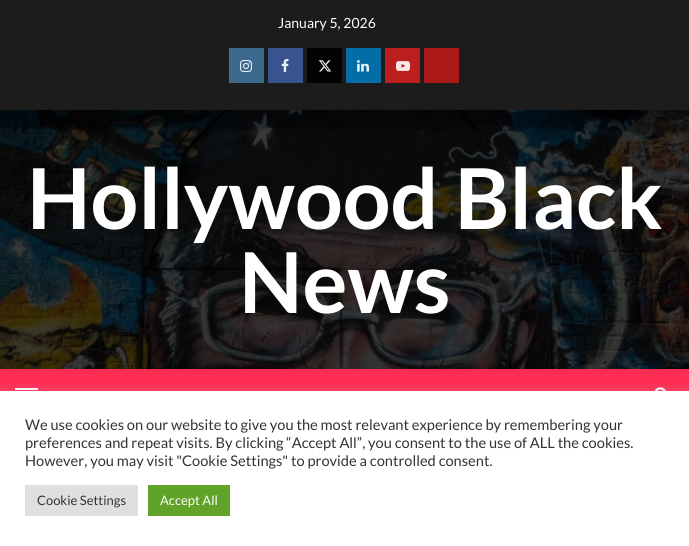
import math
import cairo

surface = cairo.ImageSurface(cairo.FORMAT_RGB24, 689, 546)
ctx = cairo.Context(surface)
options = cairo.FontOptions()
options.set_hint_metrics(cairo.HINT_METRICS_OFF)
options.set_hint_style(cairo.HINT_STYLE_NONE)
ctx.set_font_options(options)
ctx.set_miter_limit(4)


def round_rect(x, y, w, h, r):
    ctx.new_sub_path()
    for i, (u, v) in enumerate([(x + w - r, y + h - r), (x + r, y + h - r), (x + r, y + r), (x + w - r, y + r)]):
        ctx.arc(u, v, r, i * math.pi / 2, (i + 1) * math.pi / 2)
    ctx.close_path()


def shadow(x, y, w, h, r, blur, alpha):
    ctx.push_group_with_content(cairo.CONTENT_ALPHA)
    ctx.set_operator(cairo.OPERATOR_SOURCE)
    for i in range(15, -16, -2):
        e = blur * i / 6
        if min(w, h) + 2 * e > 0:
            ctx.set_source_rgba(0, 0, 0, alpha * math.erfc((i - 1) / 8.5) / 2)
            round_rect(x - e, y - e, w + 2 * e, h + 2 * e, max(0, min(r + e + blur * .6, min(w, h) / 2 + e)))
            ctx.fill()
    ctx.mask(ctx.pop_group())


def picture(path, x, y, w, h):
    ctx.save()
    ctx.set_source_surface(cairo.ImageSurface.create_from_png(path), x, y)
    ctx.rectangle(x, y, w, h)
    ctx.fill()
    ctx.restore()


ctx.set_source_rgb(0.11, 0.11, 0.11)
ctx.paint()
ctx.select_font_face("Lato")
ctx.set_font_size(14)
ctx.set_source_rgb(1, 1, 1)
ctx.move_to(278, 28)
ctx.show_text("January 5, 2026")
ctx.set_source_rgb(0.235, 0.412, 0.557)
ctx.rectangle(229, 48, 35, 35)
ctx.fill()
picture("img1.png", 240, 60, 12, 12)
ctx.set_source_rgb(0.22, 0.325, 0.553)
ctx.rectangle(268, 48, 35, 35)
ctx.fill()
picture("img2.png", 281, 59, 8, 13)
ctx.set_source_rgb(0.012, 0.012, 0.012)
ctx.rectangle(307, 48, 35, 35)
ctx.fill()
picture("img3.png", 318, 60, 14, 12)
ctx.set_source_rgb(0.012, 0.431, 0.651)
ctx.rectangle(346, 48, 35, 35)
ctx.fill()
picture("img4.png", 357, 60, 12, 12)
ctx.set_source_rgb(0.733, 0.125, 0.122)
ctx.rectangle(385, 48, 35, 35)
ctx.fill()
picture("img5.png", 396, 61, 14, 10)
ctx.set_source_rgb(0.671, 0.098, 0.098)
ctx.rectangle(424, 48, 35, 35)
ctx.fill()
picture("img6.png", 0, 110, 689, 259)
ctx.select_font_face("Lato", cairo.FONT_SLANT_NORMAL, cairo.FONT_WEIGHT_BOLD)
ctx.set_font_size(84)
ctx.set_source_rgb(1, 1, 1)
ctx.move_to(27, 229)
ctx.show_text("Hollywood Black")
ctx.move_to(239, 313)
ctx.show_text("News")
ctx.set_source_rgb(1, 0.173, 0.329)
ctx.rectangle(0, 369, 689, 22)
ctx.fill()
ctx.set_source_rgb(1, 1, 1)
ctx.rectangle(15, 388, 23, 2)
ctx.fill()
picture("img7.png", 654, 387, 12, 4)
ctx.set_source_rgb(0.675, 0.671, 0.671)
shadow(0, 390, 689, 155, 0, 5, 0.3)
ctx.set_source_rgb(1, 1, 1)
ctx.rectangle(0, 391, 689, 155)
ctx.fill()
ctx.select_font_face("Lato")
ctx.set_font_size(14.65)
ctx.set_source_rgb(0.2, 0.2, 0.2)
ctx.move_to(25, 430)
ctx.show_text("We use cookies on our website to give you the most relevant experience by remembering your")
ctx.move_to(25, 448)
ctx.show_text("preferences and repeat visits. By clicking “Accept All”, you consent to the use of ALL the cookies.")
ctx.move_to(25, 466)
ctx.show_text("However, you may visit \"Cookie Settings\" to provide a controlled consent.")
ctx.set_source_rgb(0.871, 0.875, 0.878)
ctx.rectangle(25, 485, 113, 31)
ctx.fill()
ctx.set_font_size(13)
ctx.set_source_rgb(0.2, 0.2, 0.2)
ctx.move_to(37, 505)
ctx.show_text("Cookie Settings")
ctx.set_source_rgb(0.38, 0.635, 0.161)
ctx.rectangle(148, 485, 82, 31)
ctx.fill()
ctx.set_source_rgb(1, 1, 1)
ctx.move_to(160, 505)
ctx.show_text("Accept All")
surface.write_to_png("page.png")
